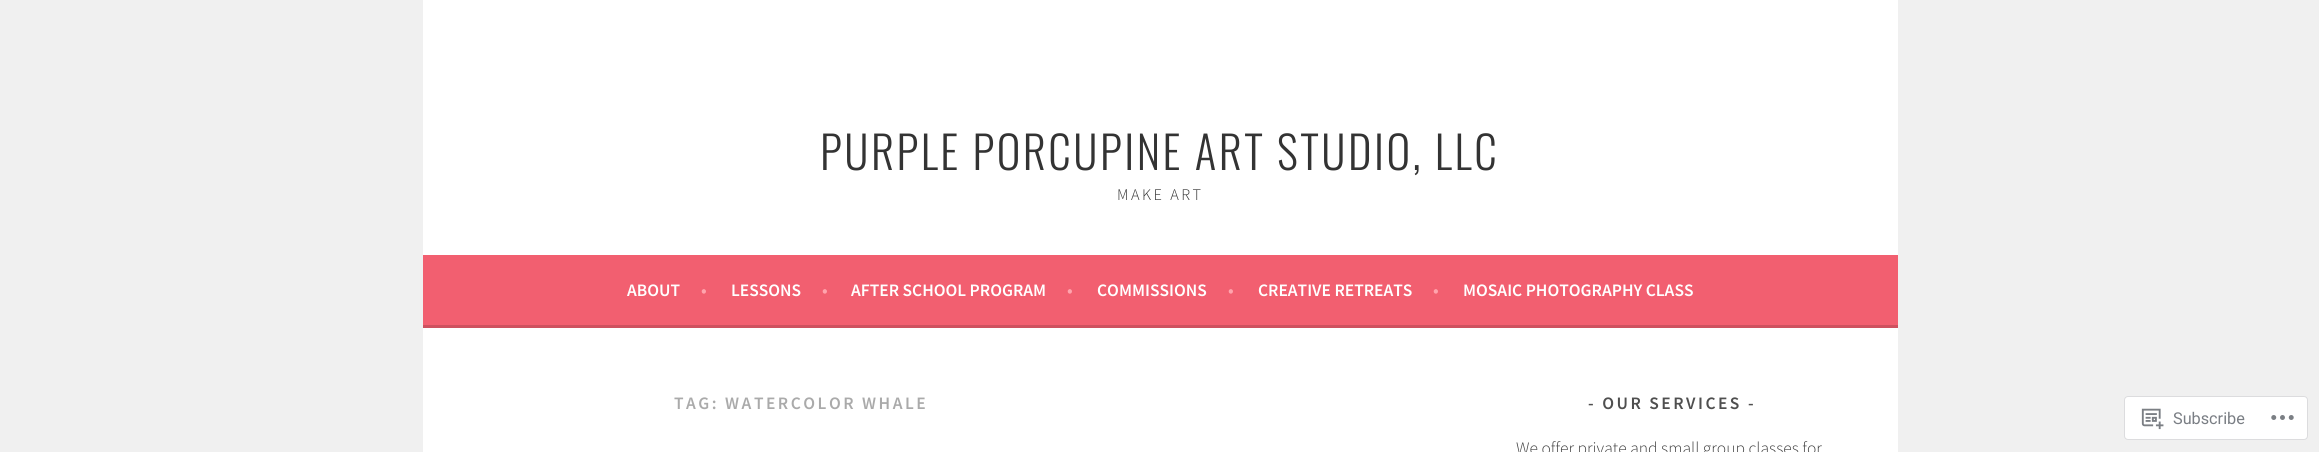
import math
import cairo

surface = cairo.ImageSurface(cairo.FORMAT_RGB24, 2319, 452)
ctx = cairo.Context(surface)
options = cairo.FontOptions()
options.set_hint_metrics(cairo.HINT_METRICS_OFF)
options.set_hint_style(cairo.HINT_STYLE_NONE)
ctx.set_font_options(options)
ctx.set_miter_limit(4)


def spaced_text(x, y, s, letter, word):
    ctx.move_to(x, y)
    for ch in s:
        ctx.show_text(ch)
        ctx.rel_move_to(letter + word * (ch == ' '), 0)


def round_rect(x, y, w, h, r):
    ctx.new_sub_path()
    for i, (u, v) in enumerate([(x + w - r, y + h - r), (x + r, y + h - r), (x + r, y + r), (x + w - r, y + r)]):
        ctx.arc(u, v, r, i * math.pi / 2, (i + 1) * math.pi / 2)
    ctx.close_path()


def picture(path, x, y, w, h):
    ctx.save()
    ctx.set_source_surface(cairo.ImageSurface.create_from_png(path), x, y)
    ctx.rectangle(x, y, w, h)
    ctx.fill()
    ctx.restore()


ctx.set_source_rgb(0.941, 0.941, 0.941)
ctx.paint()
ctx.set_source_rgb(1, 1, 1)
ctx.rectangle(423, 0, 1475, 255)
ctx.fill()
ctx.select_font_face("Oswald Light")
ctx.set_font_size(45)
ctx.set_source_rgb(0.2, 0.2, 0.2)
spaced_text(820, 170, "PURPLE PORCUPINE ART STUDIO, LLC", 2.5, 0)
ctx.select_font_face("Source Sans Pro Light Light")
ctx.set_font_size(16.25)
spaced_text(1117, 200, "MAKE ART", 2.5, 0)
ctx.set_source_rgb(0.949, 0.373, 0.439)
ctx.rectangle(423, 255, 1475, 70)
ctx.fill()
ctx.set_source_rgb(0.808, 0.318, 0.373)
ctx.rectangle(423, 325, 1475, 3)
ctx.fill()
ctx.select_font_face("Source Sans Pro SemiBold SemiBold")
ctx.set_font_size(17.5)
ctx.set_source_rgb(1, 1, 1)
ctx.move_to(627, 296)
ctx.show_text("ABOUT")
ctx.set_source_rgb(1, 0.643, 0.678)
ctx.move_to(701, 296)
ctx.show_text("•")
ctx.set_source_rgb(1, 1, 1)
ctx.move_to(731, 296)
ctx.show_text("LESSONS")
ctx.set_source_rgb(1, 0.643, 0.678)
ctx.move_to(822, 296)
ctx.show_text("•")
ctx.set_source_rgb(1, 1, 1)
ctx.move_to(851, 296)
ctx.show_text("AFTER SCHOOL PROGRAM")
ctx.set_source_rgb(1, 0.643, 0.678)
ctx.move_to(1067, 296)
ctx.show_text("•")
ctx.set_source_rgb(1, 1, 1)
ctx.move_to(1097, 296)
ctx.show_text("COMMISSIONS")
ctx.set_source_rgb(1, 0.643, 0.678)
ctx.move_to(1228, 296)
ctx.show_text("•")
ctx.set_source_rgb(1, 1, 1)
ctx.move_to(1258, 296)
ctx.show_text("CREATIVE RETREATS")
ctx.set_source_rgb(1, 0.643, 0.678)
ctx.move_to(1433, 296)
ctx.show_text("•")
ctx.set_source_rgb(1, 1, 1)
ctx.move_to(1463, 296)
ctx.show_text("MOSAIC PHOTOGRAPHY CLASS")
ctx.rectangle(423, 328, 1475, 124)
ctx.fill()
ctx.set_source_rgb(0.667, 0.667, 0.667)
spaced_text(674, 409, "TAG: WATERCOLOR WHALE", 2.5, 0)
ctx.set_source_rgb(0.31, 0.31, 0.31)
spaced_text(1588, 409, "- OUR SERVICES -", 2.5, 0)
ctx.select_font_face("Source Sans Pro Light Light")
ctx.set_source_rgb(0.251, 0.251, 0.251)
ctx.move_to(1516, 454)
ctx.show_text("We offer private and small group classes for")
ctx.set_source_rgb(1, 1, 1)
round_rect(2124.5, 396.5, 183, 43, 3.5)
ctx.fill_preserve()
ctx.set_source_rgb(0.863, 0.863, 0.871)
ctx.set_line_width(1)
ctx.stroke()
picture("img1.png", 2141, 408, 23, 22)
ctx.select_font_face("Roboto")
ctx.set_font_size(16.25)
ctx.set_source_rgb(0.478, 0.494, 0.518)
ctx.move_to(2173, 424)
ctx.show_text("Subscribe")
picture("img2.png", 2271, 415, 23, 5)
surface.write_to_png("page.png")
